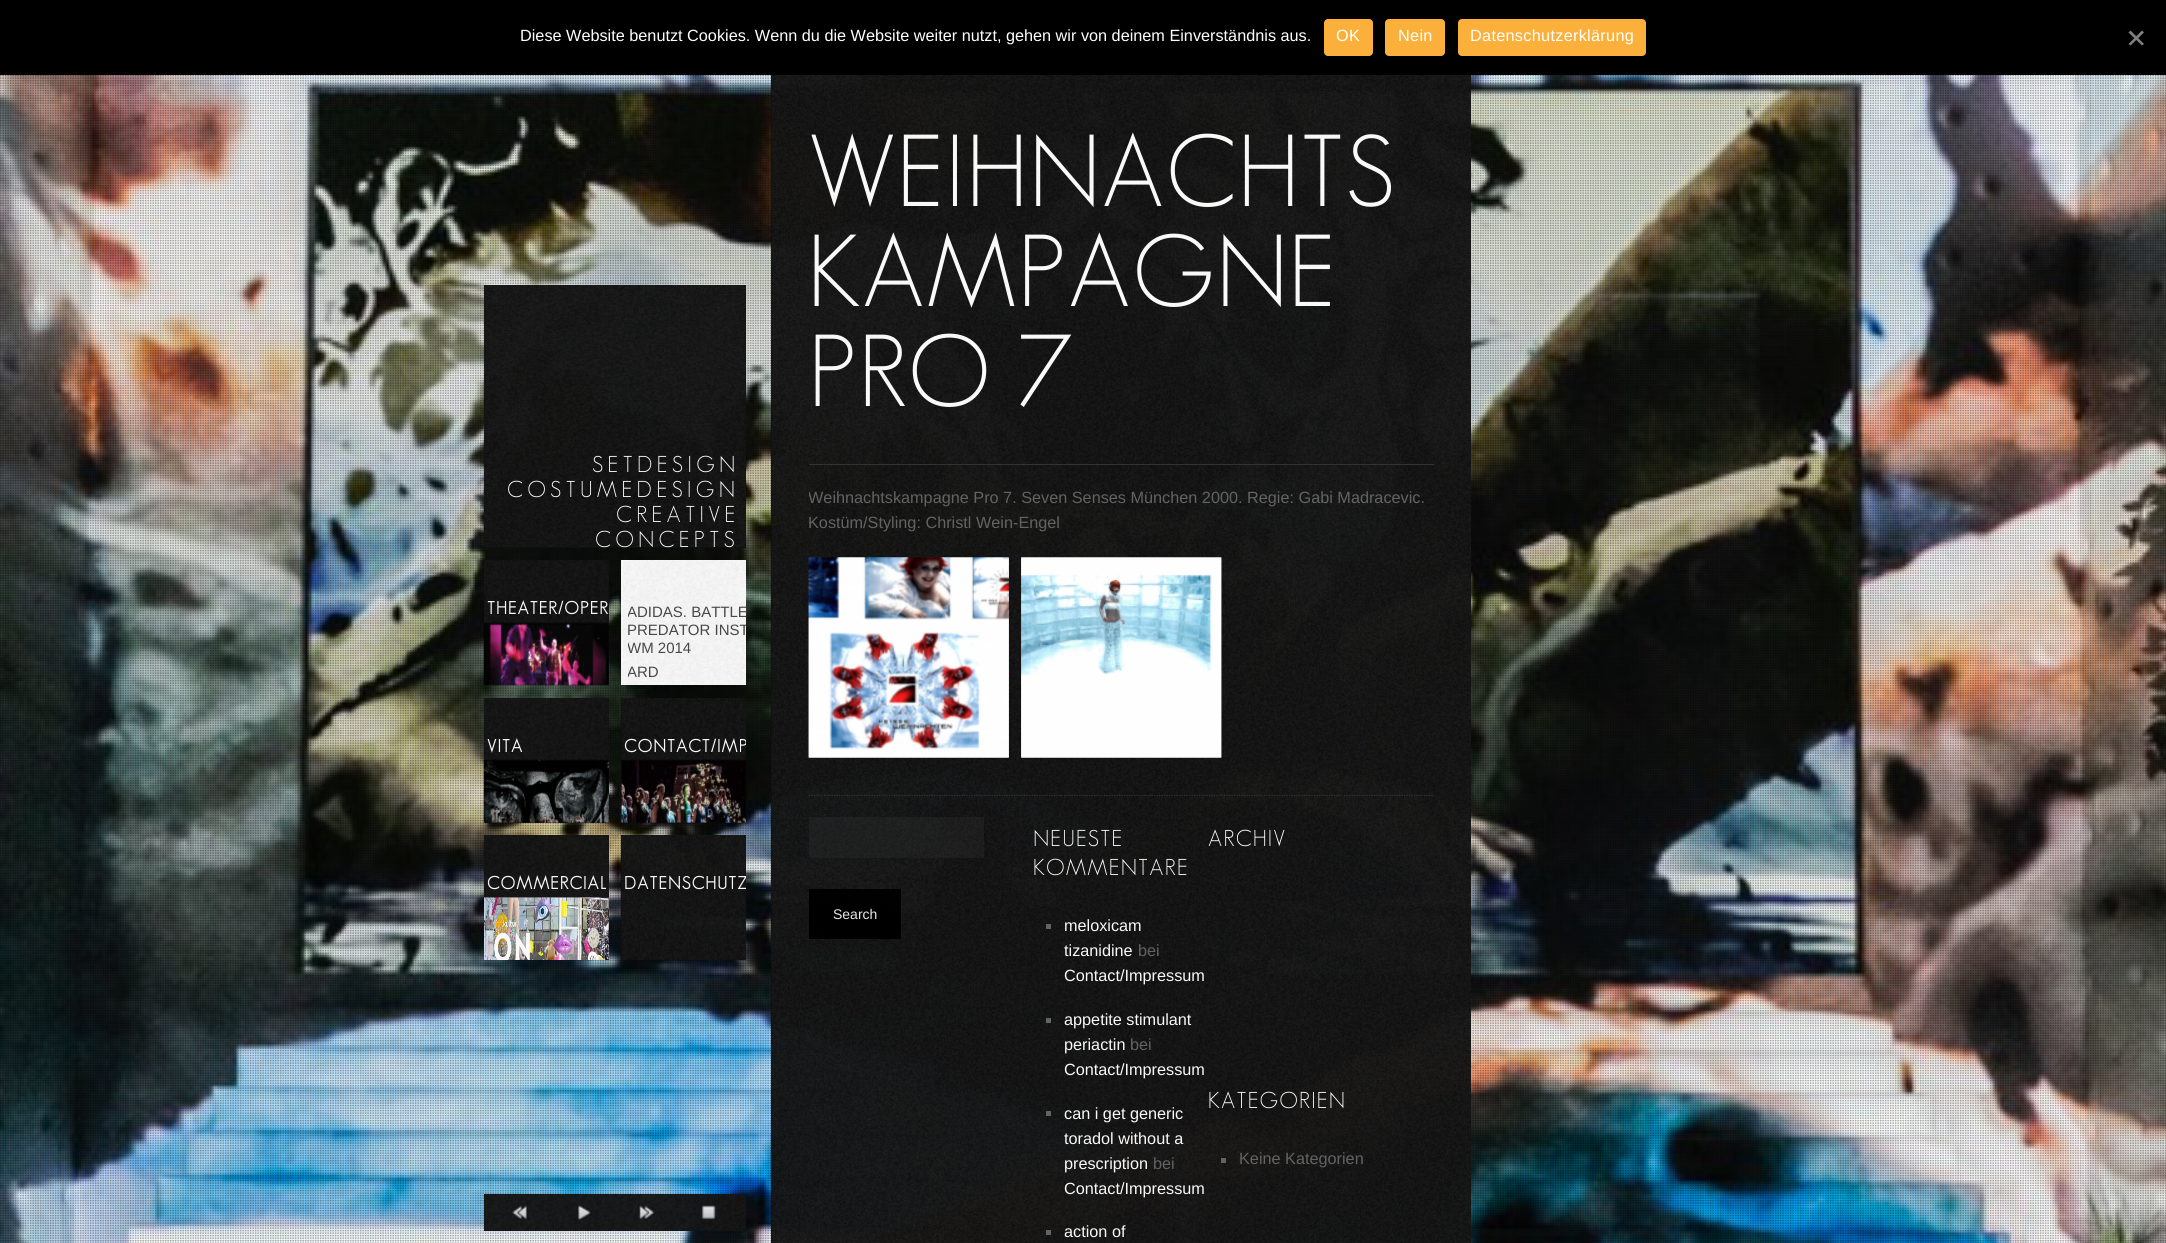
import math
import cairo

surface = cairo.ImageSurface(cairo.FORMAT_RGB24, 2166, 1243)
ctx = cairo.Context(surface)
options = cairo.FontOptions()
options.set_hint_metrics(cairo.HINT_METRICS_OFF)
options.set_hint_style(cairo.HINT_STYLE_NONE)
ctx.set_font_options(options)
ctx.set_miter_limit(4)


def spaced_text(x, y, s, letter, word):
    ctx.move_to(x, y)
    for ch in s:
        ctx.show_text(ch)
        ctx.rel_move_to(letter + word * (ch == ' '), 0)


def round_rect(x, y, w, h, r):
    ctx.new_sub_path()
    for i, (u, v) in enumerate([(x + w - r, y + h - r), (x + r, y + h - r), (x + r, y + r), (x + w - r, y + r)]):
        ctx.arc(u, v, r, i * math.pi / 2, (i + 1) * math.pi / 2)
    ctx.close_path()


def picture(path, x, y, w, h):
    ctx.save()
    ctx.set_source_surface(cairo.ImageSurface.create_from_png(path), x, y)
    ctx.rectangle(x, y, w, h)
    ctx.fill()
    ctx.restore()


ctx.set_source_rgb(1, 1, 1)
ctx.paint()
ctx.set_source_rgb(0, 0, 0)
ctx.rectangle(0, 0, 2166, 75)
ctx.fill()
ctx.select_font_face("Liberation Sans")
ctx.set_font_size(16.25)
ctx.set_source_rgb(1, 1, 1)
ctx.move_to(520, 41)
ctx.show_text("Diese Website benutzt Cookies. Wenn du die Website weiter nutzt, gehen wir von deinem Einverständnis aus.")
ctx.set_source_rgb(0.984, 0.69, 0.231)
round_rect(1324, 19, 49, 37, 4)
ctx.fill()
ctx.set_source_rgb(1, 1, 1)
spaced_text(1336, 41, "OK", 0.3, 0)
ctx.set_source_rgb(0.984, 0.69, 0.231)
round_rect(1385, 19, 60, 37, 4)
ctx.fill()
ctx.set_source_rgb(1, 1, 1)
spaced_text(1398, 41, "Nein", 0.3, 0)
ctx.set_source_rgb(0.984, 0.69, 0.231)
round_rect(1458, 19, 188, 37, 4)
ctx.fill()
ctx.set_source_rgb(1, 1, 1)
spaced_text(1470, 41, "Datenschutzerklärung", 0.3, 0)
ctx.set_source_rgb(0.502, 0.502, 0.502)
ctx.new_path()
ctx.move_to(2142, 30.5)
ctx.line_to(2144, 32.5)
ctx.line_to(2130.5, 45.5)
ctx.line_to(2128.5, 44)
ctx.close_path()
ctx.fill()
ctx.new_path()
ctx.move_to(2128.5, 32.5)
ctx.line_to(2130.5, 30.5)
ctx.line_to(2144, 44)
ctx.line_to(2142, 45.5)
ctx.close_path()
ctx.fill()
picture("img1.png", 0, 75, 2166, 1168)
picture("img2.png", 0, 75, 2166, 1168)
ctx.set_source_rgba(0.067, 0.067, 0.067, 0.98)
ctx.rectangle(484, 285, 262, 263)
ctx.fill()
picture("img3.png", 484, 285, 262, 262)
ctx.select_font_face("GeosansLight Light")
ctx.set_font_size(22.5)
ctx.set_source_rgb(0.976, 0.976, 0.976)
spaced_text(592, 472, "SETDESIGN", 4.4, 0)
spaced_text(507, 497, "COSTUMEDESIGN", 4.4, 0)
spaced_text(616, 522, "CREATIVE", 4.4, 0)
spaced_text(595, 547, "CONCEPTS", 4.4, 0)
ctx.set_source_rgba(0.067, 0.067, 0.067, 0.98)
ctx.rectangle(484, 560, 125, 125)
ctx.fill()
picture("img4.png", 484, 560, 125, 125)
ctx.select_font_face("GeosansLight", cairo.FONT_SLANT_NORMAL, cairo.FONT_WEIGHT_BOLD)
ctx.set_font_size(17.5)
ctx.set_source_rgb(0.976, 0.976, 0.976)
spaced_text(487, 614, "THEATER/OPER", 1.25, 0)
picture("img5.png", 483, 622, 126, 64)
ctx.set_source_rgba(1, 1, 1, 0.98)
ctx.rectangle(621, 560, 125, 125)
ctx.fill()
picture("img6.png", 621, 560, 125, 125)
ctx.save()
ctx.rectangle(628, 604, 118, 54)
ctx.clip()
ctx.select_font_face("Liberation Sans")
ctx.set_font_size(15)
ctx.set_source_rgb(0.282, 0.282, 0.282)
ctx.move_to(627, 617)
ctx.show_text("ADIDAS. BATTLE")
ctx.move_to(627, 635)
ctx.show_text("PREDATOR INST")
ctx.move_to(627, 653)
ctx.show_text("WM 2014")
ctx.restore()
ctx.save()
ctx.rectangle(628, 664, 118, 21)
ctx.clip()
ctx.select_font_face("Liberation Sans")
ctx.set_font_size(15)
ctx.set_source_rgb(0.282, 0.282, 0.282)
ctx.move_to(627, 677)
ctx.show_text("ARD")
ctx.restore()
ctx.set_source_rgba(0.067, 0.067, 0.067, 0.98)
ctx.rectangle(484, 698, 125, 125)
ctx.fill()
picture("img7.png", 484, 698, 125, 124)
ctx.set_source_rgb(0.976, 0.976, 0.976)
spaced_text(487, 752, "VITA", 1.25, 0)
picture("img8.png", 483, 759, 126, 64)
ctx.set_source_rgba(0.067, 0.067, 0.067, 0.98)
ctx.rectangle(621, 698, 125, 125)
ctx.fill()
picture("img9.png", 621, 698, 125, 124)
ctx.save()
ctx.rectangle(621, 698, 125, 62)
ctx.clip()
ctx.set_source_rgb(0.976, 0.976, 0.976)
spaced_text(624, 752, "CONTACT/IMP", 1.25, 0)
ctx.restore()
picture("img10.png", 620, 759, 127, 64)
ctx.rectangle(484, 835, 125, 125)
ctx.fill()
picture("img11.png", 484, 835, 125, 125)
ctx.set_source_rgb(0.976, 0.976, 0.976)
spaced_text(487, 889, "COMMERCIAL", 1.25, 0)
picture("img12.png", 484, 897, 125, 63)
ctx.set_source_rgba(0.067, 0.067, 0.067, 0.98)
ctx.rectangle(621, 835, 125, 125)
ctx.fill()
picture("img13.png", 621, 835, 125, 125)
ctx.save()
ctx.rectangle(621, 835, 125, 63)
ctx.clip()
ctx.set_source_rgb(0.976, 0.976, 0.976)
spaced_text(624, 889, "DATENSCHUTZ", 1.25, 0)
ctx.restore()
ctx.rectangle(771, 75, 700, 1168)
ctx.fill()
picture("img14.png", 771, 75, 700, 1168)
ctx.set_source_rgba(0.2, 0.2, 0.2, 0.98)
ctx.rectangle(809, 464, 625, 1)
ctx.fill()
ctx.select_font_face("GeosansLight Light")
ctx.set_font_size(100)
ctx.set_source_rgb(0.976, 0.976, 0.976)
spaced_text(808, 206, "WEIHNACHTS", 1.25, 0)
spaced_text(808, 306, "KAMPAGNE", 1.25, 0)
spaced_text(808, 406, "PRO 7", 1.25, 0)
ctx.save()
ctx.rectangle(809, 76, 625, 694)
ctx.clip()
ctx.select_font_face("Liberation Sans")
ctx.set_font_size(16.25)
ctx.set_source_rgb(0.388, 0.388, 0.388)
ctx.move_to(808, 503)
ctx.show_text("Weihnachtskampagne Pro 7. Seven Senses München 2000. Regie: Gabi Madracevic.")
ctx.restore()
ctx.select_font_face("Liberation Sans")
ctx.set_font_size(16.25)
ctx.set_source_rgb(0.388, 0.388, 0.388)
ctx.move_to(808, 528)
ctx.show_text("Kostüm/Styling: Christl Wein-Engel")
picture("img15.png", 809, 557, 200, 201)
picture("img16.png", 808, 557, 201, 201)
picture("img17.png", 808, 557, 201, 201)
picture("img18.png", 1021, 557, 200, 201)
picture("img19.png", 1021, 557, 201, 201)
picture("img20.png", 1021, 557, 201, 201)
ctx.new_path()
ctx.move_to(809, 795.5)
ctx.line_to(1434, 795.5)
ctx.set_source_rgba(0.2, 0.2, 0.2, 0.98)
ctx.set_line_width(1.2)
ctx.set_dash([1.25, 1.25])
ctx.stroke()
ctx.select_font_face("GeosansLight Light")
ctx.set_font_size(22.5)
ctx.set_source_rgb(0.976, 0.976, 0.976)
spaced_text(1033, 846, "NEUESTE", 1.25, 0)
spaced_text(1033, 875, "KOMMENTARE", 1.25, 0)
ctx.set_source_rgba(0.396, 0.396, 0.396, 0.98)
ctx.rectangle(1046, 924, 5, 5)
ctx.fill()
ctx.select_font_face("Liberation Sans")
ctx.set_font_size(16.25)
ctx.set_source_rgb(0.976, 0.976, 0.976)
ctx.move_to(1064, 931)
ctx.show_text("meloxicam")
ctx.move_to(1064, 956)
ctx.show_text("tizanidine")
ctx.set_source_rgb(0.388, 0.388, 0.388)
ctx.move_to(1138, 956)
ctx.show_text("bei")
ctx.set_source_rgb(0.976, 0.976, 0.976)
ctx.move_to(1064, 981)
ctx.show_text("Contact/Impressum")
ctx.set_source_rgba(0.396, 0.396, 0.396, 0.98)
ctx.rectangle(1046, 1018, 5, 5)
ctx.fill()
ctx.set_source_rgb(0.976, 0.976, 0.976)
ctx.move_to(1064, 1025)
ctx.show_text("appetite stimulant")
ctx.move_to(1064, 1050)
ctx.show_text("periactin")
ctx.set_source_rgb(0.388, 0.388, 0.388)
ctx.move_to(1130, 1050)
ctx.show_text("bei")
ctx.set_source_rgb(0.976, 0.976, 0.976)
ctx.move_to(1064, 1075)
ctx.show_text("Contact/Impressum")
ctx.set_source_rgba(0.396, 0.396, 0.396, 0.98)
ctx.rectangle(1046, 1111, 5, 5)
ctx.fill()
ctx.set_source_rgb(0.976, 0.976, 0.976)
ctx.move_to(1064, 1119)
ctx.show_text("can i get generic")
ctx.move_to(1064, 1144)
ctx.show_text("toradol without a")
ctx.move_to(1064, 1169)
ctx.show_text("prescription")
ctx.set_source_rgb(0.388, 0.388, 0.388)
ctx.move_to(1153, 1169)
ctx.show_text("bei")
ctx.set_source_rgb(0.976, 0.976, 0.976)
ctx.move_to(1064, 1194)
ctx.show_text("Contact/Impressum")
ctx.set_source_rgba(0.396, 0.396, 0.396, 0.98)
ctx.rectangle(1046, 1230, 5, 5)
ctx.fill()
ctx.set_source_rgb(0.976, 0.976, 0.976)
ctx.move_to(1064, 1237)
ctx.show_text("action of")
ctx.select_font_face("GeosansLight Light")
ctx.set_font_size(22.5)
spaced_text(1208, 846, "ARCHIV", 1.25, 0)
ctx.set_source_rgba(0.286, 0.286, 0.286, 0.19)
ctx.rectangle(809, 817, 175, 41)
ctx.fill()
ctx.set_source_rgba(0, 0, 0, 0.98)
ctx.rectangle(809, 889, 92, 50)
ctx.fill()
ctx.select_font_face("Liberation Sans")
ctx.set_font_size(14)
ctx.set_source_rgb(0.91, 0.91, 0.91)
ctx.move_to(833, 919)
ctx.show_text("Search")
ctx.select_font_face("GeosansLight Light")
ctx.set_font_size(22.5)
ctx.set_source_rgb(0.976, 0.976, 0.976)
spaced_text(1208, 1108, "KATEGORIEN", 1.25, 0)
ctx.set_source_rgba(0.396, 0.396, 0.396, 0.98)
ctx.rectangle(1221, 1158, 5, 5)
ctx.fill()
ctx.select_font_face("Liberation Sans")
ctx.set_font_size(16.25)
ctx.set_source_rgb(0.388, 0.388, 0.388)
ctx.move_to(1239, 1164)
ctx.show_text("Keine Kategorien")
ctx.set_source_rgba(0.067, 0.067, 0.067, 0.98)
ctx.rectangle(484, 1194, 262, 37)
ctx.fill()
picture("img21.png", 484, 1194, 262, 37)
picture("img22.png", 512, 1205, 15, 14)
picture("img23.png", 578, 1205, 13, 15)
picture("img24.png", 639, 1205, 15, 15)
picture("img25.png", 702, 1205, 14, 15)
surface.write_to_png("page.png")
